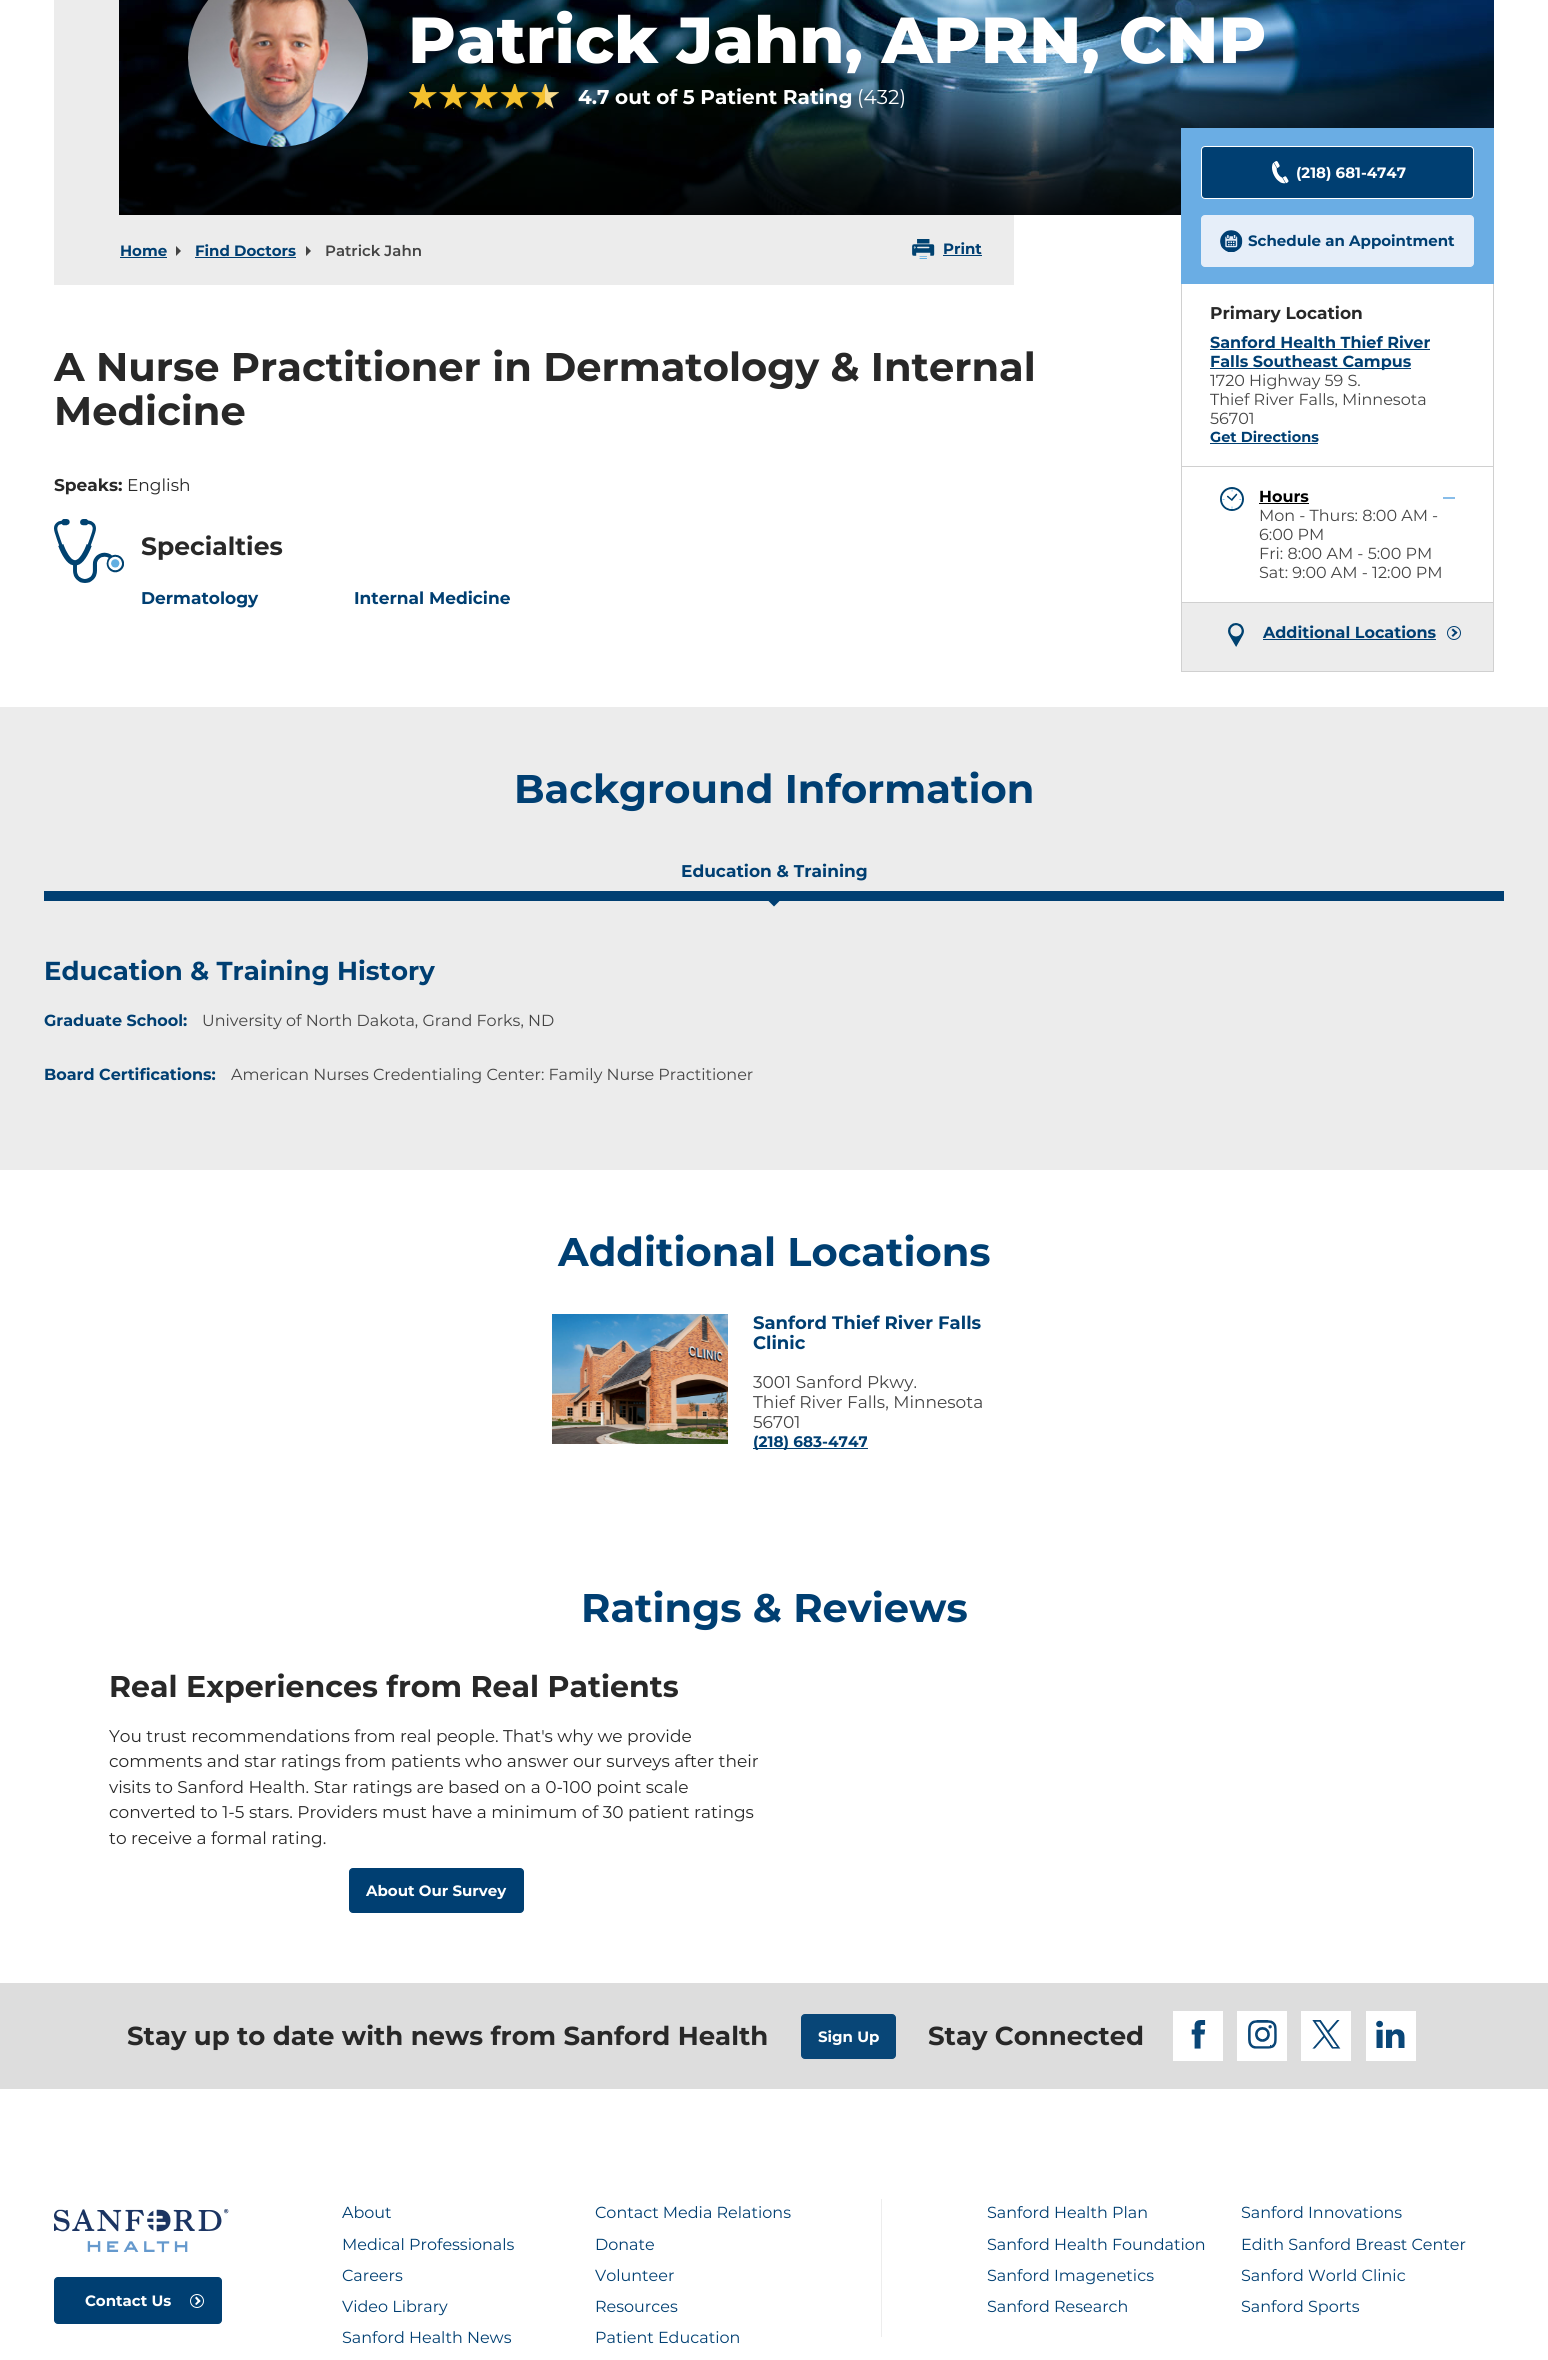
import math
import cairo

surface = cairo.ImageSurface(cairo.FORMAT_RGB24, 1548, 2360)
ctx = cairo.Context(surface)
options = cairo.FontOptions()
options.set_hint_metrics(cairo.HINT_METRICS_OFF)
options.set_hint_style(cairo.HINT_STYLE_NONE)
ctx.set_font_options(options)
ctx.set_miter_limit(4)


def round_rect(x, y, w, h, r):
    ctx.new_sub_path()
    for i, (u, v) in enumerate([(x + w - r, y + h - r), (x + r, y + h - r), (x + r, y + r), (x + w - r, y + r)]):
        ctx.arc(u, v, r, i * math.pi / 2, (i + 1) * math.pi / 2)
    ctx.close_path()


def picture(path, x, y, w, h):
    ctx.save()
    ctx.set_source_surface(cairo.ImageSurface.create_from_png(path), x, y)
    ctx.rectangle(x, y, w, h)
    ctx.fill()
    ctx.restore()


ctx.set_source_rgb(1, 1, 1)
ctx.paint()
ctx.set_source_rgb(0.922, 0.922, 0.922)
ctx.rectangle(54, 0, 65, 215)
ctx.fill()
picture("img1.png", 119, 0, 1375, 215)
picture("img2.png", 188, 0, 180, 147)
ctx.select_font_face("Montserrat ExtraBold")
ctx.set_font_size(65)
ctx.set_source_rgb(1, 1, 1)
ctx.move_to(408, 63)
ctx.show_text("Patrick Jahn, APRN, CNP")
picture("img3.png", 409, 84, 150, 25)
ctx.select_font_face("Montserrat", cairo.FONT_SLANT_NORMAL, cairo.FONT_WEIGHT_BOLD)
ctx.set_font_size(20)
ctx.move_to(578, 104)
ctx.show_text("4.7 out of 5 Patient Rating")
ctx.select_font_face("Montserrat")
ctx.move_to(857, 104)
ctx.show_text("(432)")
ctx.set_source_rgb(0.922, 0.922, 0.922)
ctx.rectangle(54, 215, 960, 70)
ctx.fill()
ctx.select_font_face("Montserrat", cairo.FONT_SLANT_NORMAL, cairo.FONT_WEIGHT_BOLD)
ctx.set_font_size(15)
ctx.set_source_rgb(0, 0.247, 0.447)
ctx.move_to(120, 256)
ctx.show_text("Home")
ctx.rectangle(120, 257, 47, 1)
ctx.fill()
ctx.set_source_rgb(0.267, 0.267, 0.267)
ctx.new_path()
ctx.move_to(176, 256)
ctx.line_to(176, 246)
ctx.line_to(181, 251)
ctx.close_path()
ctx.fill()
ctx.set_source_rgb(0, 0.247, 0.447)
ctx.move_to(195, 256)
ctx.show_text("Find Doctors")
ctx.rectangle(195, 257, 101, 1)
ctx.fill()
ctx.set_source_rgb(0.267, 0.267, 0.267)
ctx.new_path()
ctx.move_to(306, 256)
ctx.line_to(306, 246)
ctx.line_to(311, 251)
ctx.close_path()
ctx.fill()
ctx.select_font_face("Montserrat SemiBold")
ctx.move_to(325, 256)
ctx.show_text("Patrick Jahn")
picture("img4.png", 912, 239, 23, 20)
ctx.select_font_face("Montserrat", cairo.FONT_SLANT_NORMAL, cairo.FONT_WEIGHT_BOLD)
ctx.set_source_rgb(0, 0.247, 0.447)
ctx.move_to(943, 254)
ctx.show_text("Print")
ctx.rectangle(943, 255, 39, 1)
ctx.fill()
ctx.set_font_size(40)
ctx.set_source_rgb(0.157, 0.157, 0.157)
ctx.move_to(54, 381)
ctx.show_text("A Nurse Practitioner in Dermatology & Internal")
ctx.move_to(54, 425)
ctx.show_text("Medicine")
ctx.set_font_size(17)
ctx.move_to(54, 491)
ctx.show_text("Speaks:")
ctx.select_font_face("Montserrat")
ctx.move_to(127, 491)
ctx.show_text("English")
picture("img5.png", 54, 519, 70, 64)
ctx.select_font_face("Montserrat", cairo.FONT_SLANT_NORMAL, cairo.FONT_WEIGHT_BOLD)
ctx.set_font_size(25)
ctx.move_to(141, 555)
ctx.show_text("Specialties")
ctx.set_font_size(17)
ctx.set_source_rgb(0, 0.247, 0.447)
ctx.move_to(141, 604)
ctx.show_text("Dermatology")
ctx.move_to(354, 604)
ctx.show_text("Internal Medicine")
ctx.set_source_rgb(0.416, 0.678, 0.894)
ctx.rectangle(1181, 128, 313, 156)
ctx.fill()
ctx.set_source_rgb(0, 0.247, 0.447)
round_rect(1201.5, 146.5, 272, 52, 3.5)
ctx.fill_preserve()
ctx.set_source_rgb(1, 1, 1)
ctx.set_line_width(1)
ctx.stroke()
picture("img6.png", 1272, 161, 17, 23)
ctx.set_font_size(15)
ctx.move_to(1296, 178)
ctx.show_text("(218) 681-4747")
ctx.set_source_rgb(0.902, 0.933, 0.973)
round_rect(1201.5, 215.5, 272, 51, 3.5)
ctx.fill_preserve()
ctx.stroke()
picture("img7.png", 1220, 230, 23, 22)
ctx.set_source_rgb(0, 0.247, 0.447)
ctx.move_to(1248, 246)
ctx.show_text("Schedule an Appointment")
ctx.set_source_rgb(0.816, 0.816, 0.816)
ctx.rectangle(1493, 284, 1, 388)
ctx.fill()
ctx.rectangle(1181, 671, 313, 1)
ctx.fill()
ctx.rectangle(1181, 284, 1, 388)
ctx.fill()
ctx.rectangle(1182, 466, 311, 1)
ctx.fill()
ctx.set_font_size(17)
ctx.set_source_rgb(0.157, 0.157, 0.157)
ctx.move_to(1210, 319)
ctx.show_text("Primary Location")
ctx.set_font_size(16)
ctx.set_source_rgb(0, 0.247, 0.447)
ctx.move_to(1210, 348)
ctx.show_text("Sanford Health Thief River")
ctx.rectangle(1210, 349, 220, 1)
ctx.fill()
ctx.rectangle(1210, 368, 201, 1)
ctx.fill()
ctx.move_to(1210, 367)
ctx.show_text("Falls Southeast Campus")
ctx.select_font_face("Montserrat")
ctx.set_source_rgb(0.267, 0.267, 0.267)
ctx.move_to(1210, 386)
ctx.show_text("1720 Highway 59 S.")
ctx.move_to(1210, 405)
ctx.show_text("Thief River Falls, Minnesota")
ctx.move_to(1210, 424)
ctx.show_text("56701")
ctx.select_font_face("Montserrat", cairo.FONT_SLANT_NORMAL, cairo.FONT_WEIGHT_BOLD)
ctx.set_font_size(14.5)
ctx.set_source_rgb(0, 0.247, 0.447)
ctx.move_to(1210, 442)
ctx.show_text("Get Directions")
ctx.rectangle(1210, 443, 108, 1)
ctx.fill()
ctx.set_source_rgb(0.816, 0.816, 0.816)
ctx.rectangle(1182, 602, 311, 1)
ctx.fill()
picture("img8.png", 1220, 487, 24, 24)
ctx.set_font_size(16)
ctx.set_source_rgb(0, 0, 0)
ctx.move_to(1259, 502)
ctx.show_text("Hours")
ctx.rectangle(1259, 503, 50, 1)
ctx.fill()
ctx.set_source_rgb(0.533, 0.741, 0.914)
ctx.rectangle(1443, 497, 12, 2)
ctx.fill()
ctx.select_font_face("Montserrat")
ctx.set_source_rgb(0.267, 0.267, 0.267)
ctx.move_to(1259, 521)
ctx.show_text("Mon - Thurs: 8:00 AM -")
ctx.move_to(1259, 540)
ctx.show_text("6:00 PM")
ctx.move_to(1259, 559)
ctx.show_text("Fri: 8:00 AM - 5:00 PM")
ctx.move_to(1259, 578)
ctx.show_text("Sat: 9:00 AM - 12:00 PM")
ctx.set_source_rgb(0.922, 0.922, 0.922)
ctx.rectangle(1182, 603, 311, 68)
ctx.fill()
picture("img9.png", 1228, 623, 16, 24)
ctx.select_font_face("Montserrat", cairo.FONT_SLANT_NORMAL, cairo.FONT_WEIGHT_BOLD)
ctx.set_source_rgb(0, 0.247, 0.447)
ctx.move_to(1263, 638)
ctx.show_text("Additional Locations")
ctx.rectangle(1263, 639, 173, 1)
ctx.fill()
ctx.arc(1454, 633, 6.5, 0, 2 * math.pi)
ctx.stroke()
ctx.new_path()
ctx.move_to(1451.5, 630)
ctx.line_to(1453, 628.5)
ctx.line_to(1457.5, 632.5)
ctx.line_to(1456, 634)
ctx.close_path()
ctx.fill()
ctx.new_path()
ctx.move_to(1451.5, 635.5)
ctx.line_to(1456, 631.5)
ctx.line_to(1457.5, 632.5)
ctx.line_to(1453, 637)
ctx.close_path()
ctx.fill()
ctx.set_source_rgb(0.922, 0.922, 0.922)
ctx.rectangle(0, 707, 1548, 463)
ctx.fill()
ctx.set_font_size(40)
ctx.set_source_rgb(0, 0.247, 0.447)
ctx.move_to(514, 803)
ctx.show_text("Background Information")
ctx.set_font_size(17)
ctx.move_to(681, 877)
ctx.show_text("Education & Training")
ctx.rectangle(44, 891, 1460, 10)
ctx.fill()
ctx.new_path()
ctx.move_to(774, 892.5)
ctx.line_to(781, 899.5)
ctx.line_to(774, 906.5)
ctx.line_to(767, 899.5)
ctx.close_path()
ctx.fill()
ctx.set_font_size(26)
ctx.move_to(44, 980)
ctx.show_text("Education & Training History")
ctx.set_font_size(16)
ctx.move_to(44, 1026)
ctx.show_text("Graduate School:")
ctx.select_font_face("Montserrat")
ctx.set_source_rgb(0.267, 0.267, 0.267)
ctx.move_to(202, 1026)
ctx.show_text("University of North Dakota, Grand Forks, ND")
ctx.select_font_face("Montserrat", cairo.FONT_SLANT_NORMAL, cairo.FONT_WEIGHT_BOLD)
ctx.set_source_rgb(0, 0.247, 0.447)
ctx.move_to(44, 1080)
ctx.show_text("Board Certifications:")
ctx.select_font_face("Montserrat")
ctx.set_source_rgb(0.267, 0.267, 0.267)
ctx.move_to(231, 1080)
ctx.show_text("American Nurses Credentialing Center: Family Nurse Practitioner")
ctx.select_font_face("Montserrat", cairo.FONT_SLANT_NORMAL, cairo.FONT_WEIGHT_BOLD)
ctx.set_font_size(40)
ctx.set_source_rgb(0, 0.247, 0.447)
ctx.move_to(558, 1266)
ctx.show_text("Additional Locations")
picture("img10.png", 552, 1314, 176, 130)
ctx.set_font_size(18)
ctx.move_to(753, 1329)
ctx.show_text("Sanford Thief River Falls")
ctx.move_to(753, 1349)
ctx.show_text("Clinic")
ctx.select_font_face("Montserrat")
ctx.set_font_size(17)
ctx.set_source_rgb(0.267, 0.267, 0.267)
ctx.move_to(753, 1388)
ctx.show_text("3001 Sanford Pkwy.")
ctx.move_to(753, 1408)
ctx.show_text("Thief River Falls, Minnesota")
ctx.move_to(753, 1428)
ctx.show_text("56701")
ctx.set_source_rgb(0, 0.247, 0.447)
ctx.rectangle(753, 1448, 115, 1)
ctx.fill()
ctx.select_font_face("Montserrat", cairo.FONT_SLANT_NORMAL, cairo.FONT_WEIGHT_BOLD)
ctx.set_font_size(15.25)
ctx.move_to(753, 1447)
ctx.show_text("(218) 683-4747")
ctx.set_font_size(40)
ctx.move_to(581, 1622)
ctx.show_text("Ratings & Reviews")
ctx.set_font_size(30)
ctx.set_source_rgb(0.157, 0.157, 0.157)
ctx.move_to(109, 1697)
ctx.show_text("Real Experiences from Real Patients")
ctx.select_font_face("Montserrat")
ctx.set_font_size(17)
ctx.move_to(109, 1742)
ctx.show_text("You trust recommendations from real people. That's why we provide")
ctx.move_to(109, 1767)
ctx.show_text("comments and star ratings from patients who answer our surveys after their")
ctx.move_to(109, 1793)
ctx.show_text("visits to Sanford Health. Star ratings are based on a 0-100 point scale")
ctx.move_to(109, 1818)
ctx.show_text("converted to 1-5 stars. Providers must have a minimum of 30 patient ratings")
ctx.move_to(109, 1844)
ctx.show_text("to receive a formal rating.")
ctx.set_source_rgb(0, 0.247, 0.447)
round_rect(349.5, 1868.5, 174, 44, 3.5)
ctx.fill_preserve()
ctx.stroke()
ctx.select_font_face("Montserrat", cairo.FONT_SLANT_NORMAL, cairo.FONT_WEIGHT_BOLD)
ctx.set_font_size(15)
ctx.set_source_rgb(1, 1, 1)
ctx.move_to(366, 1896)
ctx.show_text("About Our Survey")
ctx.set_source_rgb(0.867, 0.867, 0.867)
ctx.rectangle(0, 1983, 1548, 106)
ctx.fill()
ctx.set_font_size(26)
ctx.set_source_rgb(0.157, 0.157, 0.157)
ctx.move_to(127, 2045)
ctx.show_text("Stay up to date with news from Sanford Health")
ctx.set_source_rgb(0.035, 0.275, 0.467)
round_rect(801.5, 2014.5, 94, 44, 3.5)
ctx.fill_preserve()
ctx.stroke()
ctx.set_font_size(15)
ctx.set_source_rgb(1, 1, 1)
ctx.move_to(818, 2042)
ctx.show_text("Sign Up")
ctx.set_font_size(26)
ctx.set_source_rgb(0.157, 0.157, 0.157)
ctx.move_to(928, 2045)
ctx.show_text("Stay Connected")
ctx.set_source_rgb(1, 1, 1)
ctx.rectangle(1173, 2011, 50, 50)
ctx.fill()
picture("img11.png", 1191, 2020, 15, 29)
ctx.rectangle(1237, 2011, 50, 50)
ctx.fill()
picture("img12.png", 1248, 2020, 29, 29)
ctx.rectangle(1301, 2011, 50, 50)
ctx.fill()
picture("img13.png", 1312, 2020, 29, 29)
ctx.rectangle(1366, 2011, 50, 50)
ctx.fill()
picture("img14.png", 1376, 2020, 29, 28)
picture("img15.png", 54, 2209, 175, 44)
ctx.set_source_rgb(0, 0.247, 0.447)
round_rect(54.5, 2277.5, 167, 46, 3.5)
ctx.fill_preserve()
ctx.stroke()
ctx.set_font_size(15)
ctx.set_source_rgb(1, 1, 1)
ctx.move_to(85, 2306)
ctx.show_text("Contact Us")
ctx.new_path()
ctx.arc(197, 2301, 6.5, 0, 2 * math.pi)
ctx.stroke()
ctx.new_path()
ctx.move_to(195, 2298)
ctx.line_to(196.5, 2296.5)
ctx.line_to(200.5, 2301)
ctx.line_to(199, 2302.5)
ctx.close_path()
ctx.fill()
ctx.new_path()
ctx.move_to(195, 2304)
ctx.line_to(199, 2299.5)
ctx.line_to(200.5, 2301)
ctx.line_to(196.5, 2305)
ctx.close_path()
ctx.fill()
ctx.select_font_face("Montserrat")
ctx.set_font_size(16)
ctx.set_source_rgb(0, 0.247, 0.447)
ctx.move_to(342, 2218)
ctx.show_text("About")
ctx.move_to(342, 2250)
ctx.show_text("Medical Professionals")
ctx.move_to(342, 2281)
ctx.show_text("Careers")
ctx.move_to(342, 2312)
ctx.show_text("Video Library")
ctx.move_to(342, 2343)
ctx.show_text("Sanford Health News")
ctx.move_to(595, 2218)
ctx.show_text("Contact Media Relations")
ctx.set_source_rgb(0.929, 0.929, 0.929)
ctx.rectangle(881, 2199, 1, 138)
ctx.fill()
ctx.set_source_rgb(0, 0.247, 0.447)
ctx.move_to(595, 2250)
ctx.show_text("Donate")
ctx.move_to(595, 2281)
ctx.show_text("Volunteer")
ctx.move_to(595, 2312)
ctx.show_text("Resources")
ctx.move_to(595, 2343)
ctx.show_text("Patient Education")
ctx.move_to(987, 2218)
ctx.show_text("Sanford Health Plan")
ctx.move_to(987, 2250)
ctx.show_text("Sanford Health Foundation")
ctx.move_to(987, 2281)
ctx.show_text("Sanford Imagenetics")
ctx.move_to(987, 2312)
ctx.show_text("Sanford Research")
ctx.move_to(1241, 2218)
ctx.show_text("Sanford Innovations")
ctx.move_to(1241, 2250)
ctx.show_text("Edith Sanford Breast Center")
ctx.move_to(1241, 2281)
ctx.show_text("Sanford World Clinic")
ctx.move_to(1241, 2312)
ctx.show_text("Sanford Sports")
surface.write_to_png("page.png")
